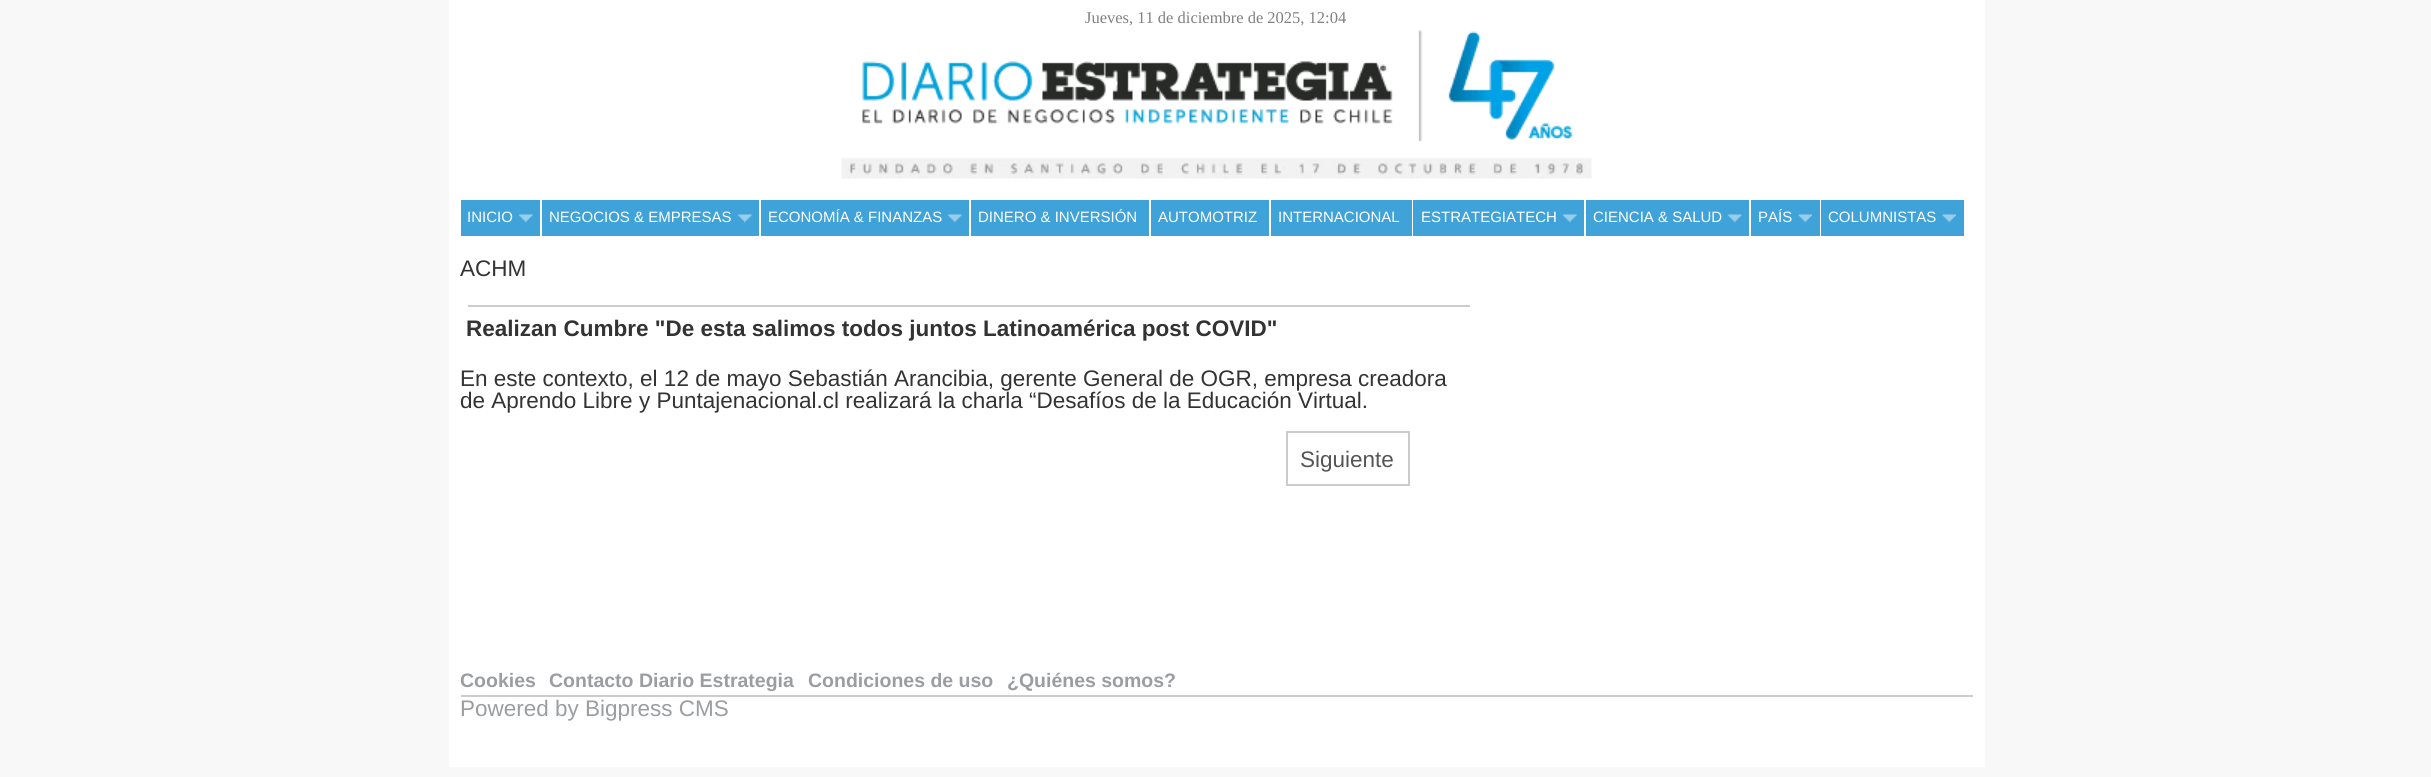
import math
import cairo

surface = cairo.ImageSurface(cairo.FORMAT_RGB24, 2431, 777)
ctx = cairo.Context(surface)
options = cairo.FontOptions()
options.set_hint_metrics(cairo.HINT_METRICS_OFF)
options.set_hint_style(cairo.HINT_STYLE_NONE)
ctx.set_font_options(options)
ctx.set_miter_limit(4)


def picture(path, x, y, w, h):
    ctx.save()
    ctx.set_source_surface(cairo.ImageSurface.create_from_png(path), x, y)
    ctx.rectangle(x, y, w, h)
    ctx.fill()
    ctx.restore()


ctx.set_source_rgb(0.969, 0.969, 0.969)
ctx.paint()
ctx.set_source_rgb(1, 1, 1)
ctx.rectangle(449, 0, 1536, 767)
ctx.fill()
ctx.select_font_face("Liberation Serif")
ctx.set_font_size(16.5)
ctx.set_source_rgb(0.502, 0.502, 0.502)
ctx.move_to(1085, 23)
ctx.show_text("Jueves, 11 de diciembre de 2025, 12:04")
picture("img1.png", 841, 30, 751, 149)
ctx.set_source_rgb(0.247, 0.635, 0.851)
ctx.rectangle(461, 200, 79, 36)
ctx.fill()
ctx.select_font_face("Liberation Sans")
ctx.set_font_size(15)
ctx.set_source_rgb(1, 1, 1)
ctx.move_to(467, 222)
ctx.show_text("INICIO")
picture("img2.png", 518, 214, 15, 9)
ctx.set_source_rgb(0.247, 0.635, 0.851)
ctx.rectangle(542, 200, 217, 36)
ctx.fill()
ctx.set_source_rgb(1, 1, 1)
ctx.move_to(549, 222)
ctx.show_text("NEGOCIOS & EMPRESAS")
picture("img3.png", 737, 214, 15, 9)
ctx.set_source_rgb(0.247, 0.635, 0.851)
ctx.rectangle(761, 200, 208, 36)
ctx.fill()
ctx.set_source_rgb(1, 1, 1)
ctx.move_to(768, 222)
ctx.show_text("ECONOMÍA & FINANZAS")
picture("img4.png", 947, 214, 15, 9)
ctx.set_source_rgb(0.247, 0.635, 0.851)
ctx.rectangle(971, 200, 178, 36)
ctx.fill()
ctx.set_source_rgb(1, 1, 1)
ctx.move_to(978, 222)
ctx.show_text("DINERO & INVERSIÓN")
ctx.set_source_rgb(0.247, 0.635, 0.851)
ctx.rectangle(1151, 200, 118, 36)
ctx.fill()
ctx.set_source_rgb(1, 1, 1)
ctx.move_to(1158, 222)
ctx.show_text("AUTOMOTRIZ")
ctx.set_source_rgb(0.247, 0.635, 0.851)
ctx.rectangle(1271, 200, 141, 36)
ctx.fill()
ctx.set_source_rgb(1, 1, 1)
ctx.move_to(1278, 222)
ctx.show_text("INTERNACIONAL")
ctx.set_source_rgb(0.247, 0.635, 0.851)
ctx.rectangle(1413, 200, 171, 36)
ctx.fill()
ctx.set_source_rgb(1, 1, 1)
ctx.move_to(1421, 222)
ctx.show_text("ESTRATEGIATECH")
picture("img4.png", 1562, 214, 15, 9)
ctx.set_source_rgb(0.247, 0.635, 0.851)
ctx.rectangle(1586, 200, 163, 36)
ctx.fill()
ctx.set_source_rgb(1, 1, 1)
ctx.move_to(1593, 222)
ctx.show_text("CIENCIA & SALUD")
picture("img4.png", 1727, 214, 15, 9)
ctx.set_source_rgb(0.247, 0.635, 0.851)
ctx.rectangle(1751, 200, 69, 36)
ctx.fill()
ctx.set_source_rgb(1, 1, 1)
ctx.move_to(1758, 222)
ctx.show_text("PAÍS")
picture("img5.png", 1798, 214, 14, 9)
ctx.set_source_rgb(0.247, 0.635, 0.851)
ctx.rectangle(1821, 200, 143, 36)
ctx.fill()
ctx.set_source_rgb(1, 1, 1)
ctx.move_to(1828, 222)
ctx.show_text("COLUMNISTAS")
picture("img5.png", 1942, 214, 14, 9)
ctx.set_font_size(22.5)
ctx.set_source_rgb(0.2, 0.2, 0.2)
ctx.move_to(460, 276)
ctx.show_text("ACHM")
ctx.set_source_rgb(0.8, 0.8, 0.8)
ctx.rectangle(468, 305, 1002, 2)
ctx.fill()
ctx.select_font_face("Liberation Sans", cairo.FONT_SLANT_NORMAL, cairo.FONT_WEIGHT_BOLD)
ctx.set_source_rgb(0.2, 0.2, 0.2)
ctx.move_to(466, 336)
ctx.show_text("Realizan Cumbre \"De esta salimos todos juntos Latinoamérica post COVID\"")
ctx.select_font_face("Liberation Sans")
ctx.move_to(460, 386)
ctx.show_text("En este contexto, el 12 de mayo Sebastián Arancibia, gerente General de OGR, empresa creadora")
ctx.move_to(460, 408)
ctx.show_text("de Aprendo Libre y Puntajenacional.cl realizará la charla “Desafíos de la Educación Virtual.")
ctx.rectangle(1287, 432, 122, 53)
ctx.set_source_rgb(0.8, 0.8, 0.8)
ctx.stroke()
ctx.set_source_rgb(0.333, 0.333, 0.333)
ctx.move_to(1300, 467)
ctx.show_text("Siguiente")
ctx.set_source_rgb(0.8, 0.8, 0.8)
ctx.rectangle(461, 695, 1512, 2)
ctx.fill()
ctx.select_font_face("Liberation Sans", cairo.FONT_SLANT_NORMAL, cairo.FONT_WEIGHT_BOLD)
ctx.set_font_size(19.5)
ctx.set_source_rgb(0.608, 0.616, 0.627)
ctx.move_to(460, 687)
ctx.show_text("Cookies")
ctx.move_to(549, 687)
ctx.show_text("Contacto Diario Estrategia")
ctx.move_to(808, 687)
ctx.show_text("Condiciones de uso")
ctx.move_to(1007, 687)
ctx.show_text("¿Quiénes somos?")
ctx.select_font_face("Liberation Sans")
ctx.set_font_size(22.5)
ctx.move_to(460, 716)
ctx.show_text("Powered by Bigpress CMS")
surface.write_to_png("page.png")
